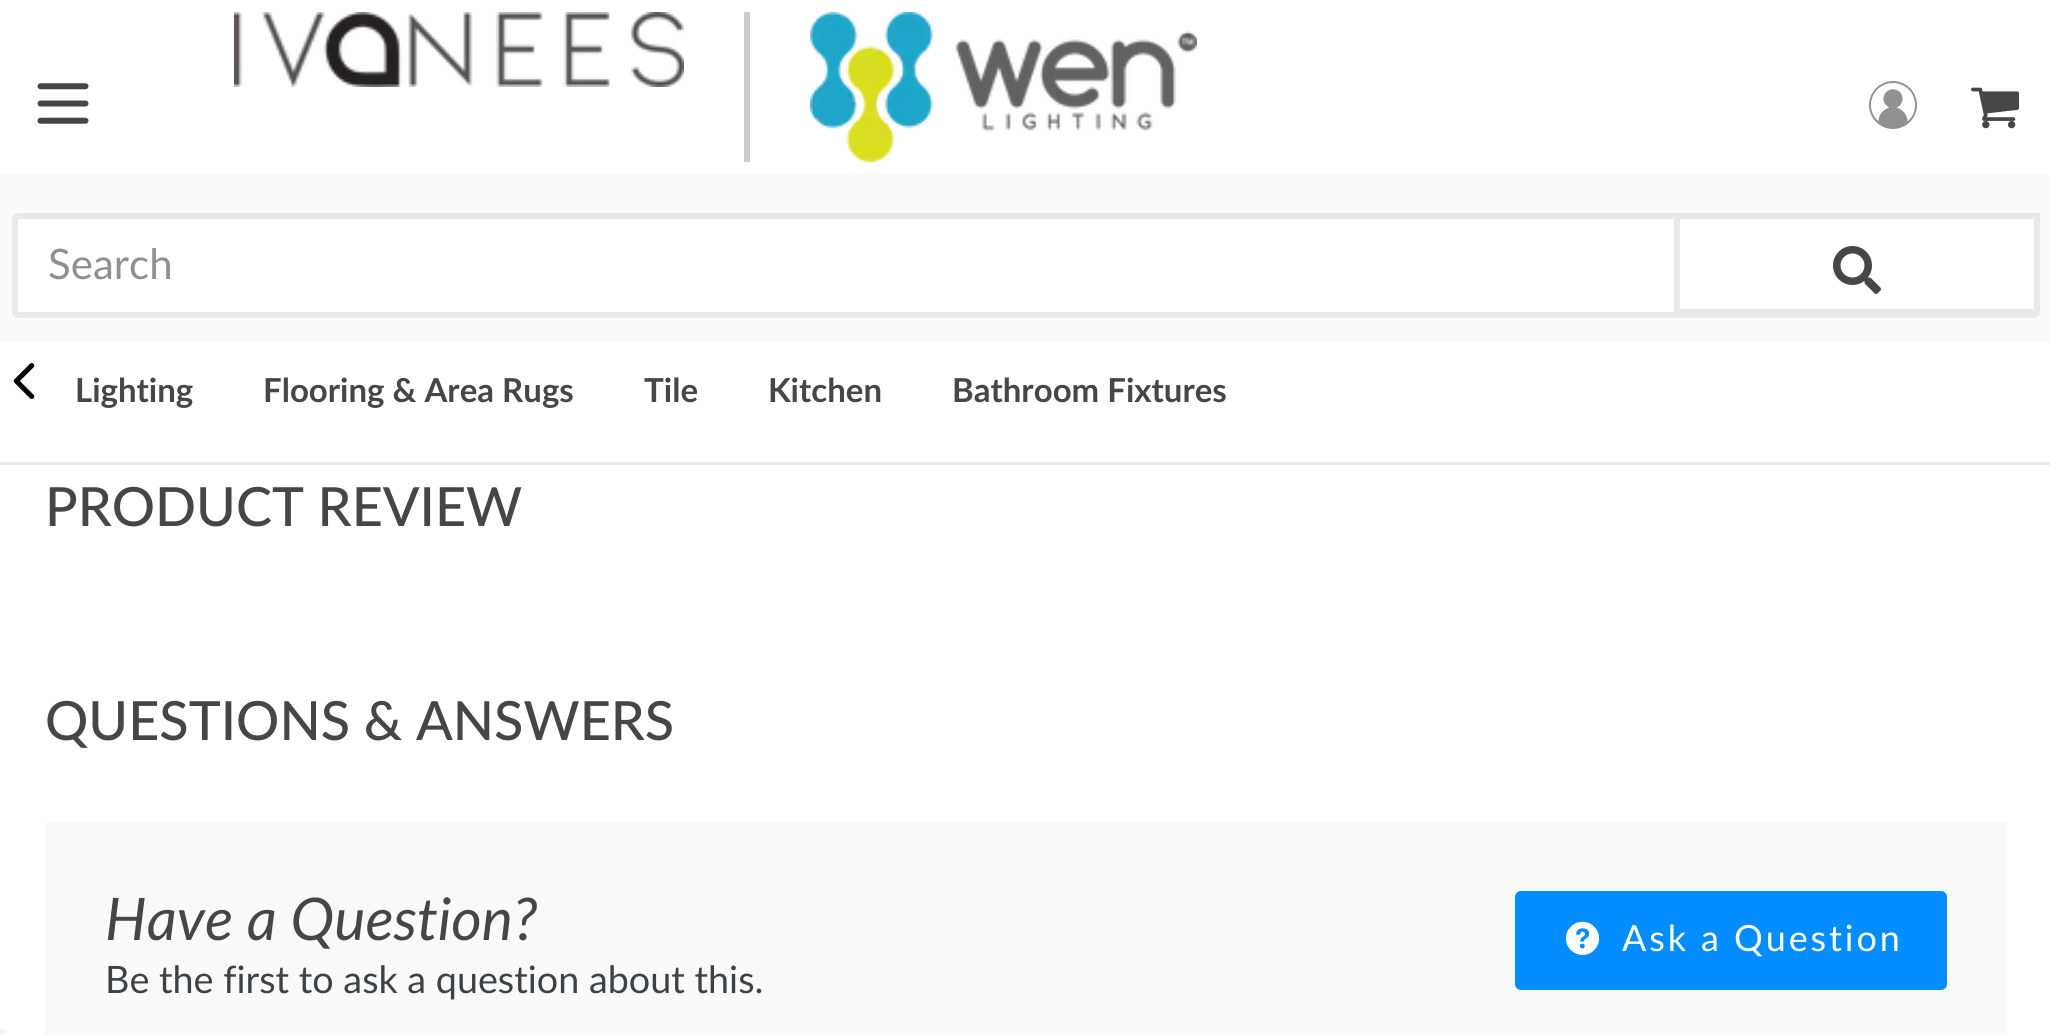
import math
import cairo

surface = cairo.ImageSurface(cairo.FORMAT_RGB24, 2050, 1035)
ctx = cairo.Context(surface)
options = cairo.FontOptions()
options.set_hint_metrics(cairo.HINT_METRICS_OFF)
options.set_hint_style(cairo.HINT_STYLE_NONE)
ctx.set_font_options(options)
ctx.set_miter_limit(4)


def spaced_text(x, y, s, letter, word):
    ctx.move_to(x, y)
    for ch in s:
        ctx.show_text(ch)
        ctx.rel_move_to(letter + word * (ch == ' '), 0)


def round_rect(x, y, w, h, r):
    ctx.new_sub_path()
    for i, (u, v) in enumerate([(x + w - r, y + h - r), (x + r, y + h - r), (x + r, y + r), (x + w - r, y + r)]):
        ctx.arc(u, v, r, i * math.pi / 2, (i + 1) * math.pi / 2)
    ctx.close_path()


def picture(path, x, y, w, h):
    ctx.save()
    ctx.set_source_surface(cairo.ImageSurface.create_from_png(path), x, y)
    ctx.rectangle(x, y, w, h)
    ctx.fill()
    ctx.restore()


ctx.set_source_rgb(1, 1, 1)
ctx.paint()
ctx.set_source_rgb(0.914, 0.914, 0.914)
ctx.rectangle(0, 462, 2050, 3)
ctx.fill()
picture("img1.png", 37, 83, 52, 41)
picture("img2.png", 234, 12, 450, 75)
ctx.set_source_rgb(0.8, 0.8, 0.8)
ctx.rectangle(744, 12, 6, 150)
ctx.fill()
picture("img3.png", 810, 12, 387, 150)
picture("img4.png", 1869, 81, 48, 48)
picture("img5.png", 1971, 87, 48, 42)
ctx.set_source_rgb(0.98, 0.98, 0.98)
ctx.rectangle(0, 174, 2050, 168)
ctx.fill()
ctx.set_source_rgb(1, 1, 1)
round_rect(15, 216, 2022, 99, 3)
ctx.fill_preserve()
ctx.set_source_rgb(0.914, 0.914, 0.914)
ctx.set_line_width(6)
ctx.stroke()
ctx.select_font_face("Lato")
ctx.set_font_size(42)
ctx.set_source_rgb(0.565, 0.565, 0.565)
ctx.move_to(48, 279)
ctx.show_text("Search")
ctx.rectangle(1677, 216, 360, 96)
ctx.set_source_rgb(0.914, 0.914, 0.914)
ctx.stroke()
picture("img6.png", 1833, 246, 48, 48)
picture("img7.png", 13, 363, 22, 36)
ctx.select_font_face("Lato", cairo.FONT_SLANT_NORMAL, cairo.FONT_WEIGHT_BOLD)
ctx.set_font_size(33)
ctx.set_source_rgb(0.275, 0.275, 0.275)
ctx.move_to(75, 402)
ctx.show_text("Lighting")
ctx.move_to(263, 402)
ctx.show_text("Flooring & Area Rugs")
ctx.move_to(644, 402)
ctx.show_text("Tile")
ctx.move_to(768, 402)
ctx.show_text("Kitchen")
ctx.move_to(952, 402)
ctx.show_text("Bathroom Fixtures")
ctx.select_font_face("Lato Medium")
ctx.set_font_size(54)
ctx.move_to(45, 526)
ctx.show_text("PRODUCT REVIEW")
ctx.move_to(45, 740)
ctx.show_text("QUESTIONS & ANSWERS")
ctx.set_source_rgb(0.98, 0.98, 0.98)
ctx.rectangle(45, 822, 1962, 213)
ctx.fill()
ctx.select_font_face("Lato", cairo.FONT_SLANT_ITALIC)
ctx.set_font_size(58.75)
ctx.set_source_rgb(0.275, 0.275, 0.275)
ctx.move_to(105, 940)
ctx.show_text("Have a Question?")
ctx.select_font_face("Lato")
ctx.set_font_size(37.75)
ctx.set_source_rgb(0.239, 0.259, 0.275)
ctx.move_to(105, 993)
ctx.show_text("Be the first to ask a question about this.")
ctx.set_source_rgb(0.016, 0.553, 1)
round_rect(1516.5, 892.5, 429, 96, 4.5)
ctx.fill_preserve()
ctx.set_line_width(3)
ctx.stroke()
picture("img8.png", 1565, 921, 35, 34)
ctx.set_font_size(36)
ctx.set_source_rgb(1, 1, 1)
spaced_text(1622, 951, "Ask a Question", 2.9, 0)
ctx.set_source_rgb(0.961, 0.961, 0.961)
ctx.rectangle(0, 1029, 6, 6)
ctx.fill()
surface.write_to_png("page.png")
